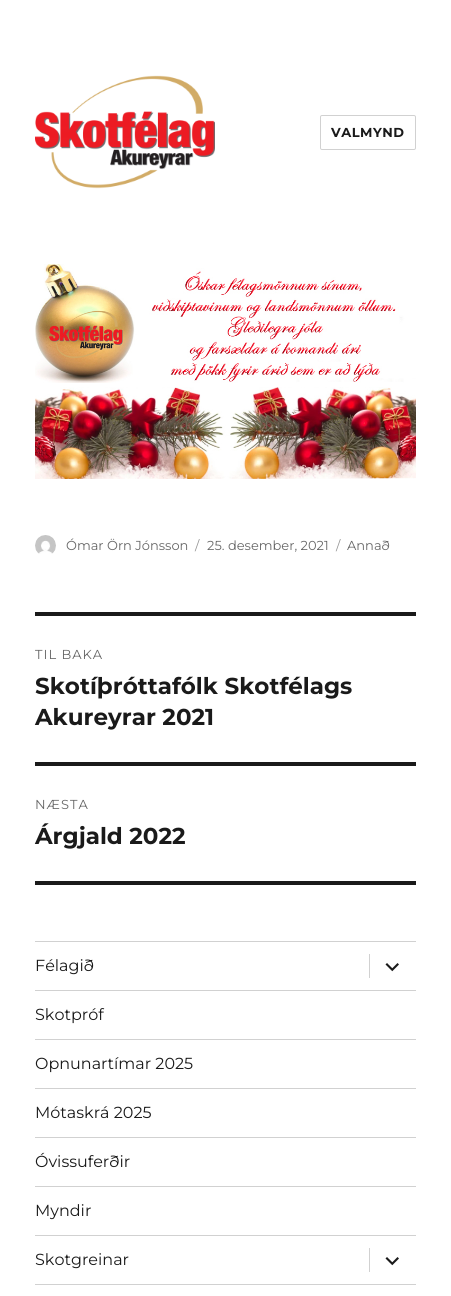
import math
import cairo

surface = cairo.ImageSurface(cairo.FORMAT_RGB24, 451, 1296)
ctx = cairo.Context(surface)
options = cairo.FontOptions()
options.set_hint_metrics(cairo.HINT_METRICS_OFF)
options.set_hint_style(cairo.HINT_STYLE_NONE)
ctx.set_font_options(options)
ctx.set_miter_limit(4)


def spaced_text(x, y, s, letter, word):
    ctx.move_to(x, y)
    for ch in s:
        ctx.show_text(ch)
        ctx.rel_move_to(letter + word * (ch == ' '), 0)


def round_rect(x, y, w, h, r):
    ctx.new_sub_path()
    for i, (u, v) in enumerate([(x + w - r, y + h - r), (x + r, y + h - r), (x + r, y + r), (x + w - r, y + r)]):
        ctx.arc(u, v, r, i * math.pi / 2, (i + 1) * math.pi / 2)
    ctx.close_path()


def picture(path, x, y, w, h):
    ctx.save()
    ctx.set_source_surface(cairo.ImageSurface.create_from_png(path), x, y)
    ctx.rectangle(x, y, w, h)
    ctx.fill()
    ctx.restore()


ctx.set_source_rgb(1, 1, 1)
ctx.paint()
picture("img1.png", 35, 75, 180, 114)
round_rect(320.5, 115.5, 95, 34, 1.5)
ctx.set_source_rgb(0.82, 0.82, 0.82)
ctx.set_line_width(1)
ctx.stroke()
ctx.select_font_face("Montserrat Thin")
ctx.set_font_size(13)
ctx.set_source_rgb(0.102, 0.102, 0.102)
spaced_text(331, 137, "VALMYND", 0.5, 0)
picture("img2.png", 35, 264, 381, 215)
picture("img3.png", 35, 535, 21, 19)
ctx.select_font_face("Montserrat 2 Thin")
ctx.set_source_rgb(0.408, 0.408, 0.408)
ctx.move_to(66, 550)
ctx.show_text("Ómar Örn Jónsson")
ctx.set_source_rgb(0.584, 0.584, 0.584)
ctx.move_to(195, 550)
ctx.show_text("/")
ctx.set_source_rgb(0.408, 0.408, 0.408)
ctx.move_to(207, 550)
ctx.show_text("25. desember, 2021")
ctx.set_source_rgb(0.584, 0.584, 0.584)
ctx.move_to(336, 550)
ctx.show_text("/")
ctx.set_source_rgb(0.408, 0.408, 0.408)
ctx.move_to(347, 550)
ctx.show_text("Annað")
ctx.set_source_rgb(0.102, 0.102, 0.102)
ctx.rectangle(35, 612, 381, 4)
ctx.fill()
ctx.rectangle(35, 881, 381, 4)
ctx.fill()
ctx.set_source_rgb(0.408, 0.408, 0.408)
spaced_text(35, 659, "TIL BAKA", 1, 0)
ctx.select_font_face("Montserrat Thin")
ctx.set_font_size(23)
ctx.set_source_rgb(0.102, 0.102, 0.102)
ctx.move_to(35, 694)
ctx.show_text("Skotíþróttafólk Skotfélags")
ctx.move_to(35, 725)
ctx.show_text("Akureyrar 2021")
ctx.rectangle(35, 762, 381, 4)
ctx.fill()
ctx.select_font_face("Montserrat 2 Thin")
ctx.set_font_size(13)
ctx.set_source_rgb(0.408, 0.408, 0.408)
spaced_text(35, 809, "NÆSTA", 1, 0)
ctx.select_font_face("Montserrat Thin")
ctx.set_font_size(23)
ctx.set_source_rgb(0.102, 0.102, 0.102)
ctx.move_to(35, 844)
ctx.show_text("Árgjald 2022")
ctx.set_source_rgb(0.82, 0.82, 0.82)
ctx.rectangle(35, 941, 381, 1)
ctx.fill()
ctx.select_font_face("Montserrat 2 Thin")
ctx.set_font_size(16)
ctx.set_source_rgb(0.102, 0.102, 0.102)
ctx.move_to(35, 971)
ctx.show_text("Félagið")
ctx.set_source_rgb(0.82, 0.82, 0.82)
ctx.rectangle(369, 954, 1, 24)
ctx.fill()
picture("img4.png", 385, 963, 14, 9)
ctx.rectangle(35, 990, 381, 1)
ctx.fill()
ctx.set_source_rgb(0.102, 0.102, 0.102)
ctx.move_to(35, 1020)
ctx.show_text("Skotpróf")
ctx.set_source_rgb(0.82, 0.82, 0.82)
ctx.rectangle(35, 1039, 381, 1)
ctx.fill()
ctx.set_source_rgb(0.102, 0.102, 0.102)
ctx.move_to(35, 1069)
ctx.show_text("Opnunartímar 2025")
ctx.set_source_rgb(0.82, 0.82, 0.82)
ctx.rectangle(35, 1088, 381, 1)
ctx.fill()
ctx.set_source_rgb(0.102, 0.102, 0.102)
ctx.move_to(35, 1118)
ctx.show_text("Mótaskrá 2025")
ctx.set_source_rgb(0.82, 0.82, 0.82)
ctx.rectangle(35, 1137, 381, 1)
ctx.fill()
ctx.set_source_rgb(0.102, 0.102, 0.102)
ctx.move_to(35, 1167)
ctx.show_text("Óvissuferðir")
ctx.set_source_rgb(0.82, 0.82, 0.82)
ctx.rectangle(35, 1186, 381, 1)
ctx.fill()
ctx.set_source_rgb(0.102, 0.102, 0.102)
ctx.move_to(35, 1216)
ctx.show_text("Myndir")
ctx.set_source_rgb(0.82, 0.82, 0.82)
ctx.rectangle(35, 1235, 381, 1)
ctx.fill()
ctx.set_source_rgb(0.102, 0.102, 0.102)
ctx.move_to(35, 1265)
ctx.show_text("Skotgreinar")
ctx.set_source_rgb(0.82, 0.82, 0.82)
ctx.rectangle(369, 1248, 1, 24)
ctx.fill()
picture("img4.png", 385, 1257, 14, 9)
ctx.rectangle(35, 1284, 381, 1)
ctx.fill()
surface.write_to_png("page.png")
